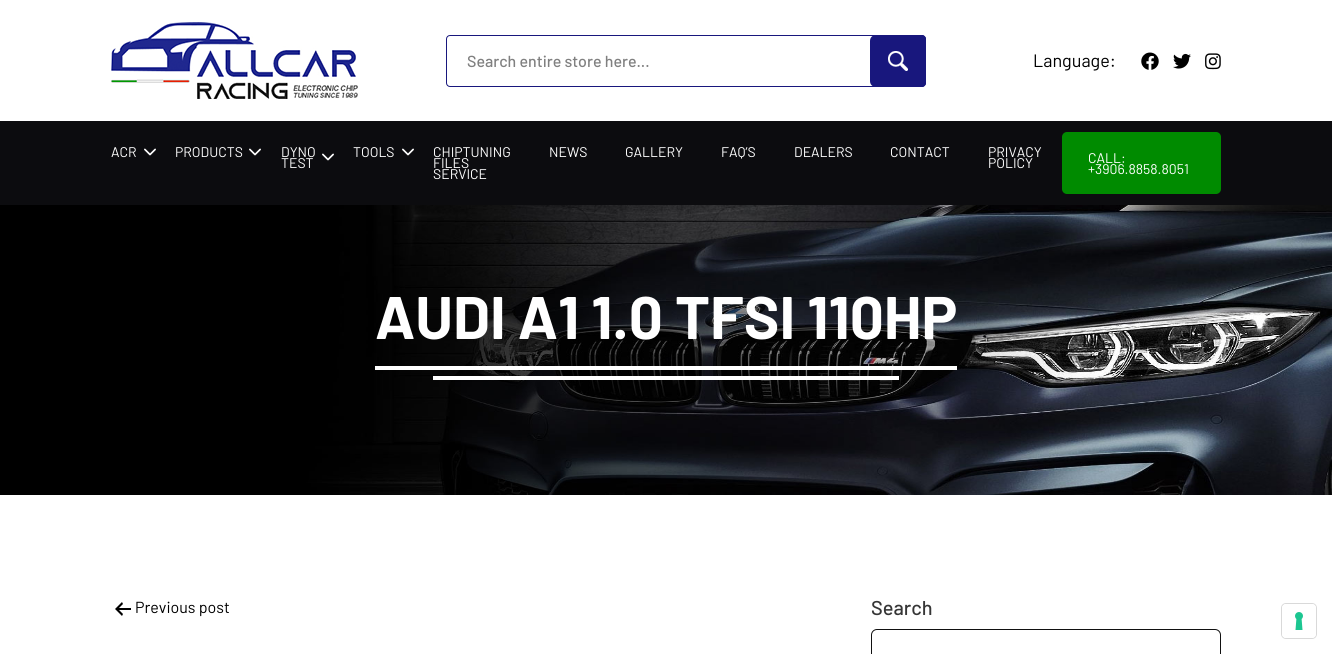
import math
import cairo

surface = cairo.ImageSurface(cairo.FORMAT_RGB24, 1332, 654)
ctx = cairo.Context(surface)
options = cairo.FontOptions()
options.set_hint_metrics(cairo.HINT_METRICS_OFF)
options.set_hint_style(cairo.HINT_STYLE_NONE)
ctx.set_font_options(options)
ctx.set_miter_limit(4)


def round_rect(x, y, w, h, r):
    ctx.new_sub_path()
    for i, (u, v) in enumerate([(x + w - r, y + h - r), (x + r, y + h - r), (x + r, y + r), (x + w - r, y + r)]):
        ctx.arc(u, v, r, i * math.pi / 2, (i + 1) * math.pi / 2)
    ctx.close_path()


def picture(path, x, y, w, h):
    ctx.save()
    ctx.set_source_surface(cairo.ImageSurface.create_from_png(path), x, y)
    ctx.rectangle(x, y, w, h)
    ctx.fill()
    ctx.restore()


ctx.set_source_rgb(1, 1, 1)
ctx.paint()
picture("img1.png", 111, 22, 247, 77)
round_rect(446.5, 35.5, 479, 51, 3.5)
ctx.set_source_rgb(0.094, 0.09, 0.49)
ctx.set_line_width(1)
ctx.stroke()
ctx.select_font_face("Barlow Medium")
ctx.set_font_size(16)
ctx.set_source_rgb(0.502, 0.502, 0.502)
ctx.move_to(467, 67)
ctx.show_text("Search entire store here...")
ctx.set_source_rgb(0.094, 0.09, 0.49)
ctx.new_path()
ctx.move_to(876, 35)
ctx.line_to(922, 35)
ctx.curve_to(924, 35, 926, 37, 926, 39)
ctx.line_to(926, 83)
ctx.curve_to(926, 85, 924, 87, 922, 87)
ctx.line_to(876, 87)
ctx.curve_to(872.5, 87, 870, 84.5, 870, 81)
ctx.line_to(870, 41)
ctx.curve_to(870, 37.5, 872.5, 35, 876, 35)
ctx.close_path()
ctx.fill()
picture("img2.png", 888, 51, 20, 20)
ctx.select_font_face("Barlow")
ctx.set_font_size(18)
ctx.set_source_rgb(0, 0, 0)
ctx.move_to(1033, 67)
ctx.show_text("Language:")
picture("img3.png", 1141, 52, 18, 18)
picture("img4.png", 1173, 53, 18, 16)
picture("img5.png", 1205, 53, 16, 17)
ctx.set_source_rgb(0.047, 0.047, 0.059)
ctx.rectangle(0, 121, 1332, 84)
ctx.fill()
picture("img6.png", 144, 148, 12, 8)
ctx.set_font_size(14)
ctx.set_source_rgb(1, 1, 1)
ctx.move_to(111, 157)
ctx.show_text("ACR")
picture("img6.png", 249, 148, 12, 8)
ctx.move_to(175, 157)
ctx.show_text("PRODUCTS")
picture("img6.png", 322, 153, 12, 8)
ctx.move_to(281, 157)
ctx.show_text("DYNO")
ctx.move_to(281, 168)
ctx.show_text("TEST")
picture("img6.png", 402, 148, 12, 8)
ctx.move_to(353, 157)
ctx.show_text("TOOLS")
ctx.move_to(433, 157)
ctx.show_text("CHIPTUNING")
ctx.move_to(433, 168)
ctx.show_text("FILES")
ctx.move_to(433, 179)
ctx.show_text("SERVICE")
ctx.move_to(549, 157)
ctx.show_text("NEWS")
ctx.move_to(625, 157)
ctx.show_text("GALLERY")
ctx.move_to(721, 157)
ctx.show_text("FAQ’S")
ctx.move_to(794, 157)
ctx.show_text("DEALERS")
ctx.move_to(890, 157)
ctx.show_text("CONTACT")
ctx.move_to(988, 157)
ctx.show_text("PRIVACY")
ctx.move_to(988, 168)
ctx.show_text("POLICY")
ctx.set_source_rgb(0, 0.545, 0)
round_rect(1062, 132, 159, 62, 5)
ctx.fill()
ctx.set_source_rgb(1, 1, 1)
ctx.move_to(1088, 163)
ctx.show_text("CALL:")
ctx.move_to(1088, 174)
ctx.show_text("+3906.8858.8051")
picture("img7.png", 0, 205, 1332, 290)
ctx.select_font_face("Barlow", cairo.FONT_SLANT_NORMAL, cairo.FONT_WEIGHT_BOLD)
ctx.set_font_size(60)
ctx.move_to(375, 339)
ctx.show_text("AUDI A1 1.0 TFSI 110HP")
ctx.rectangle(375, 366, 582, 4)
ctx.fill()
ctx.rectangle(433, 376, 466, 4)
ctx.fill()
picture("img8.png", 115, 602, 16, 14)
ctx.select_font_face("Barlow")
ctx.set_font_size(16)
ctx.set_source_rgb(0, 0, 0)
ctx.move_to(135, 613)
ctx.show_text("Previous post")
ctx.select_font_face("Barlow Medium")
ctx.set_font_size(20)
ctx.set_source_rgb(0.212, 0.212, 0.212)
ctx.move_to(871, 615)
ctx.show_text("Search")
round_rect(871.5, 629.5, 349, 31, 5.5)
ctx.set_source_rgb(0.067, 0.067, 0.067)
ctx.stroke()
round_rect(1281.5, 603.5, 35, 35, 4.5)
ctx.set_source_rgb(0.851, 0.851, 0.851)
ctx.stroke()
ctx.set_source_rgb(1, 1, 1)
round_rect(1282, 604, 34, 34, 4)
ctx.fill()
picture("img9.png", 1295, 612, 8, 18)
surface.write_to_png("page.png")
